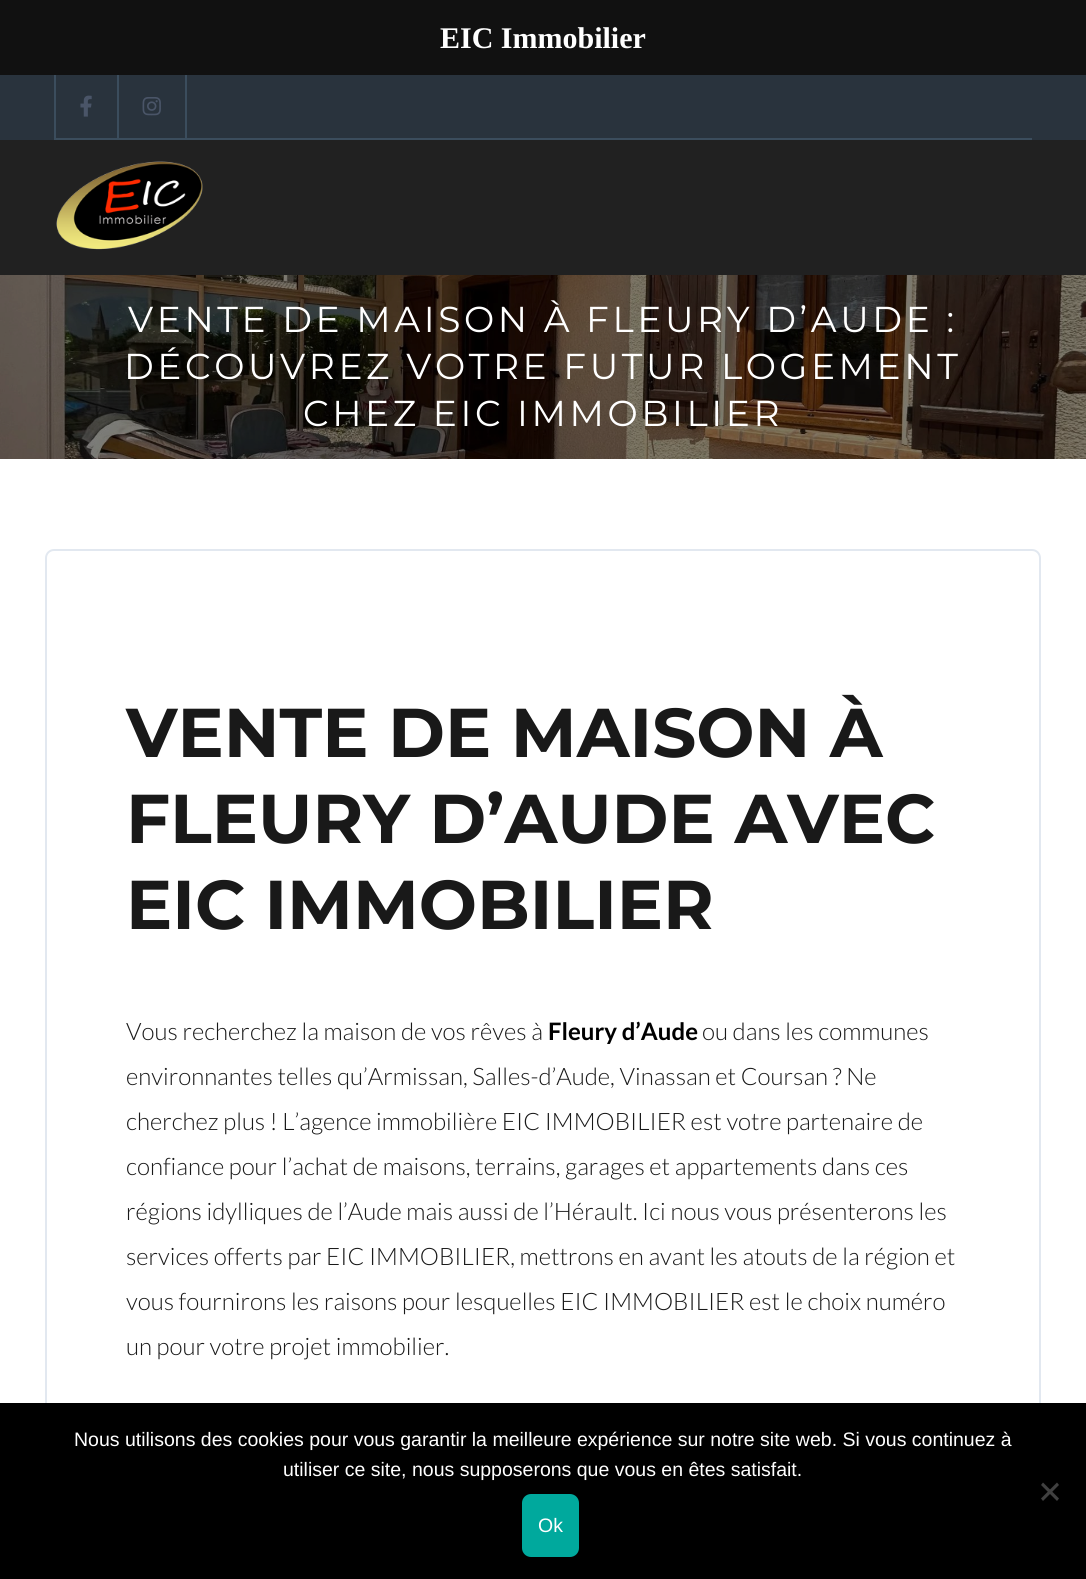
import math
import cairo

surface = cairo.ImageSurface(cairo.FORMAT_RGB24, 1086, 1579)
ctx = cairo.Context(surface)
options = cairo.FontOptions()
options.set_hint_metrics(cairo.HINT_METRICS_OFF)
options.set_hint_style(cairo.HINT_STYLE_NONE)
ctx.set_font_options(options)
ctx.set_miter_limit(4)


def spaced_text(x, y, s, letter, word):
    ctx.move_to(x, y)
    for ch in s:
        ctx.show_text(ch)
        ctx.rel_move_to(letter + word * (ch == ' '), 0)


def round_rect(x, y, w, h, r):
    ctx.new_sub_path()
    for i, (u, v) in enumerate([(x + w - r, y + h - r), (x + r, y + h - r), (x + r, y + r), (x + w - r, y + r)]):
        ctx.arc(u, v, r, i * math.pi / 2, (i + 1) * math.pi / 2)
    ctx.close_path()


def picture(path, x, y, w, h):
    ctx.save()
    ctx.set_source_surface(cairo.ImageSurface.create_from_png(path), x, y)
    ctx.rectangle(x, y, w, h)
    ctx.fill()
    ctx.restore()


ctx.set_source_rgb(1, 1, 1)
ctx.paint()
ctx.set_source_rgb(0.067, 0.067, 0.067)
ctx.rectangle(0, 0, 1086, 75)
ctx.fill()
ctx.select_font_face("Liberation Serif", cairo.FONT_SLANT_NORMAL, cairo.FONT_WEIGHT_BOLD)
ctx.set_font_size(30)
ctx.set_source_rgb(1, 1, 1)
ctx.move_to(440, 48)
ctx.show_text("EIC Immobilier")
picture("img1.png", 0, 275, 1086, 184)
ctx.select_font_face("Montserrat Thin")
ctx.set_font_size(36)
spaced_text(128, 332, "VENTE DE MAISON À FLEURY D’AUDE :", 3.6, 0)
spaced_text(124, 379, "DÉCOUVREZ VOTRE FUTUR LOGEMENT", 3.6, 0)
spaced_text(303, 426, "CHEZ EIC IMMOBILIER", 3.6, 0)
round_rect(46, 550, 994, 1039, 8)
ctx.set_source_rgb(0.886, 0.91, 0.941)
ctx.stroke()
ctx.select_font_face("Montserrat", cairo.FONT_SLANT_NORMAL, cairo.FONT_WEIGHT_BOLD)
ctx.set_font_size(69)
ctx.set_source_rgb(0.098, 0.098, 0.098)
ctx.move_to(126, 757)
ctx.show_text("VENTE DE MAISON À")
ctx.move_to(126, 843)
ctx.show_text("FLEURY D’AUDE AVEC")
ctx.move_to(126, 929)
ctx.show_text("EIC IMMOBILIER")
ctx.select_font_face("Lato Light")
ctx.set_font_size(24)
ctx.move_to(126, 1040)
ctx.show_text("Vous recherchez la maison de vos rêves à")
ctx.select_font_face("Lato", cairo.FONT_SLANT_NORMAL, cairo.FONT_WEIGHT_BOLD)
ctx.set_source_rgb(0, 0, 0)
ctx.move_to(548, 1040)
ctx.show_text("Fleury d’Aude")
ctx.select_font_face("Lato Light")
ctx.set_source_rgb(0.098, 0.098, 0.098)
ctx.move_to(702, 1040)
ctx.show_text("ou dans les communes")
ctx.move_to(126, 1085)
ctx.show_text("environnantes telles qu’Armissan, Salles-d’Aude, Vinassan et Coursan ? Ne")
ctx.move_to(126, 1130)
ctx.show_text("cherchez plus ! L’agence immobilière EIC IMMOBILIER est votre partenaire de")
ctx.move_to(126, 1175)
ctx.show_text("confiance pour l’achat de maisons, terrains, garages et appartements dans ces")
ctx.move_to(126, 1220)
ctx.show_text("régions idylliques de l’Aude mais aussi de l’Hérault. Ici nous vous présenterons les")
ctx.move_to(126, 1265)
ctx.show_text("services offerts par EIC IMMOBILIER, mettrons en avant les atouts de la région et")
ctx.move_to(126, 1310)
ctx.show_text("vous fournirons les raisons pour lesquelles EIC IMMOBILIER est le choix numéro")
ctx.move_to(126, 1355)
ctx.show_text("un pour votre projet immobilier.")
ctx.set_source_rgb(0, 0, 0)
ctx.rectangle(0, 1403, 1086, 176)
ctx.fill()
ctx.select_font_face("Liberation Sans")
ctx.set_font_size(19.5)
ctx.set_source_rgb(1, 1, 1)
ctx.move_to(74, 1446)
ctx.show_text("Nous utilisons des cookies pour vous garantir la meilleure expérience sur notre site web. Si vous continuez à")
ctx.move_to(283, 1476)
ctx.show_text("utiliser ce site, nous supposerons que vous en êtes satisfait.")
ctx.set_source_rgb(0.251, 0.251, 0.251)
ctx.new_path()
ctx.move_to(1057, 1482.5)
ctx.line_to(1059, 1485)
ctx.line_to(1043, 1501)
ctx.line_to(1041, 1498.5)
ctx.close_path()
ctx.fill()
ctx.new_path()
ctx.move_to(1041, 1485)
ctx.line_to(1043, 1482.5)
ctx.line_to(1059, 1498.5)
ctx.line_to(1057, 1501)
ctx.close_path()
ctx.fill()
ctx.set_source_rgb(0, 0.663, 0.616)
round_rect(522, 1494, 57, 63, 9)
ctx.fill()
ctx.set_source_rgb(1, 1, 1)
ctx.move_to(538, 1532)
ctx.show_text("Ok")
ctx.set_source_rgb(0.161, 0.2, 0.239)
ctx.rectangle(0, 75, 1086, 65)
ctx.fill()
ctx.set_source_rgb(0.231, 0.302, 0.365)
ctx.rectangle(54, 138, 978, 2)
ctx.fill()
ctx.rectangle(117, 75, 2, 63)
ctx.fill()
ctx.rectangle(54, 75, 2, 63)
ctx.fill()
picture("img2.png", 80, 95, 12, 22)
ctx.rectangle(185, 75, 2, 63)
ctx.fill()
picture("img3.png", 142, 97, 19, 19)
ctx.set_source_rgb(0.129, 0.129, 0.129)
ctx.rectangle(0, 140, 1086, 135)
ctx.fill()
picture("img4.png", 56, 161, 147, 89)
surface.write_to_png("page.png")
